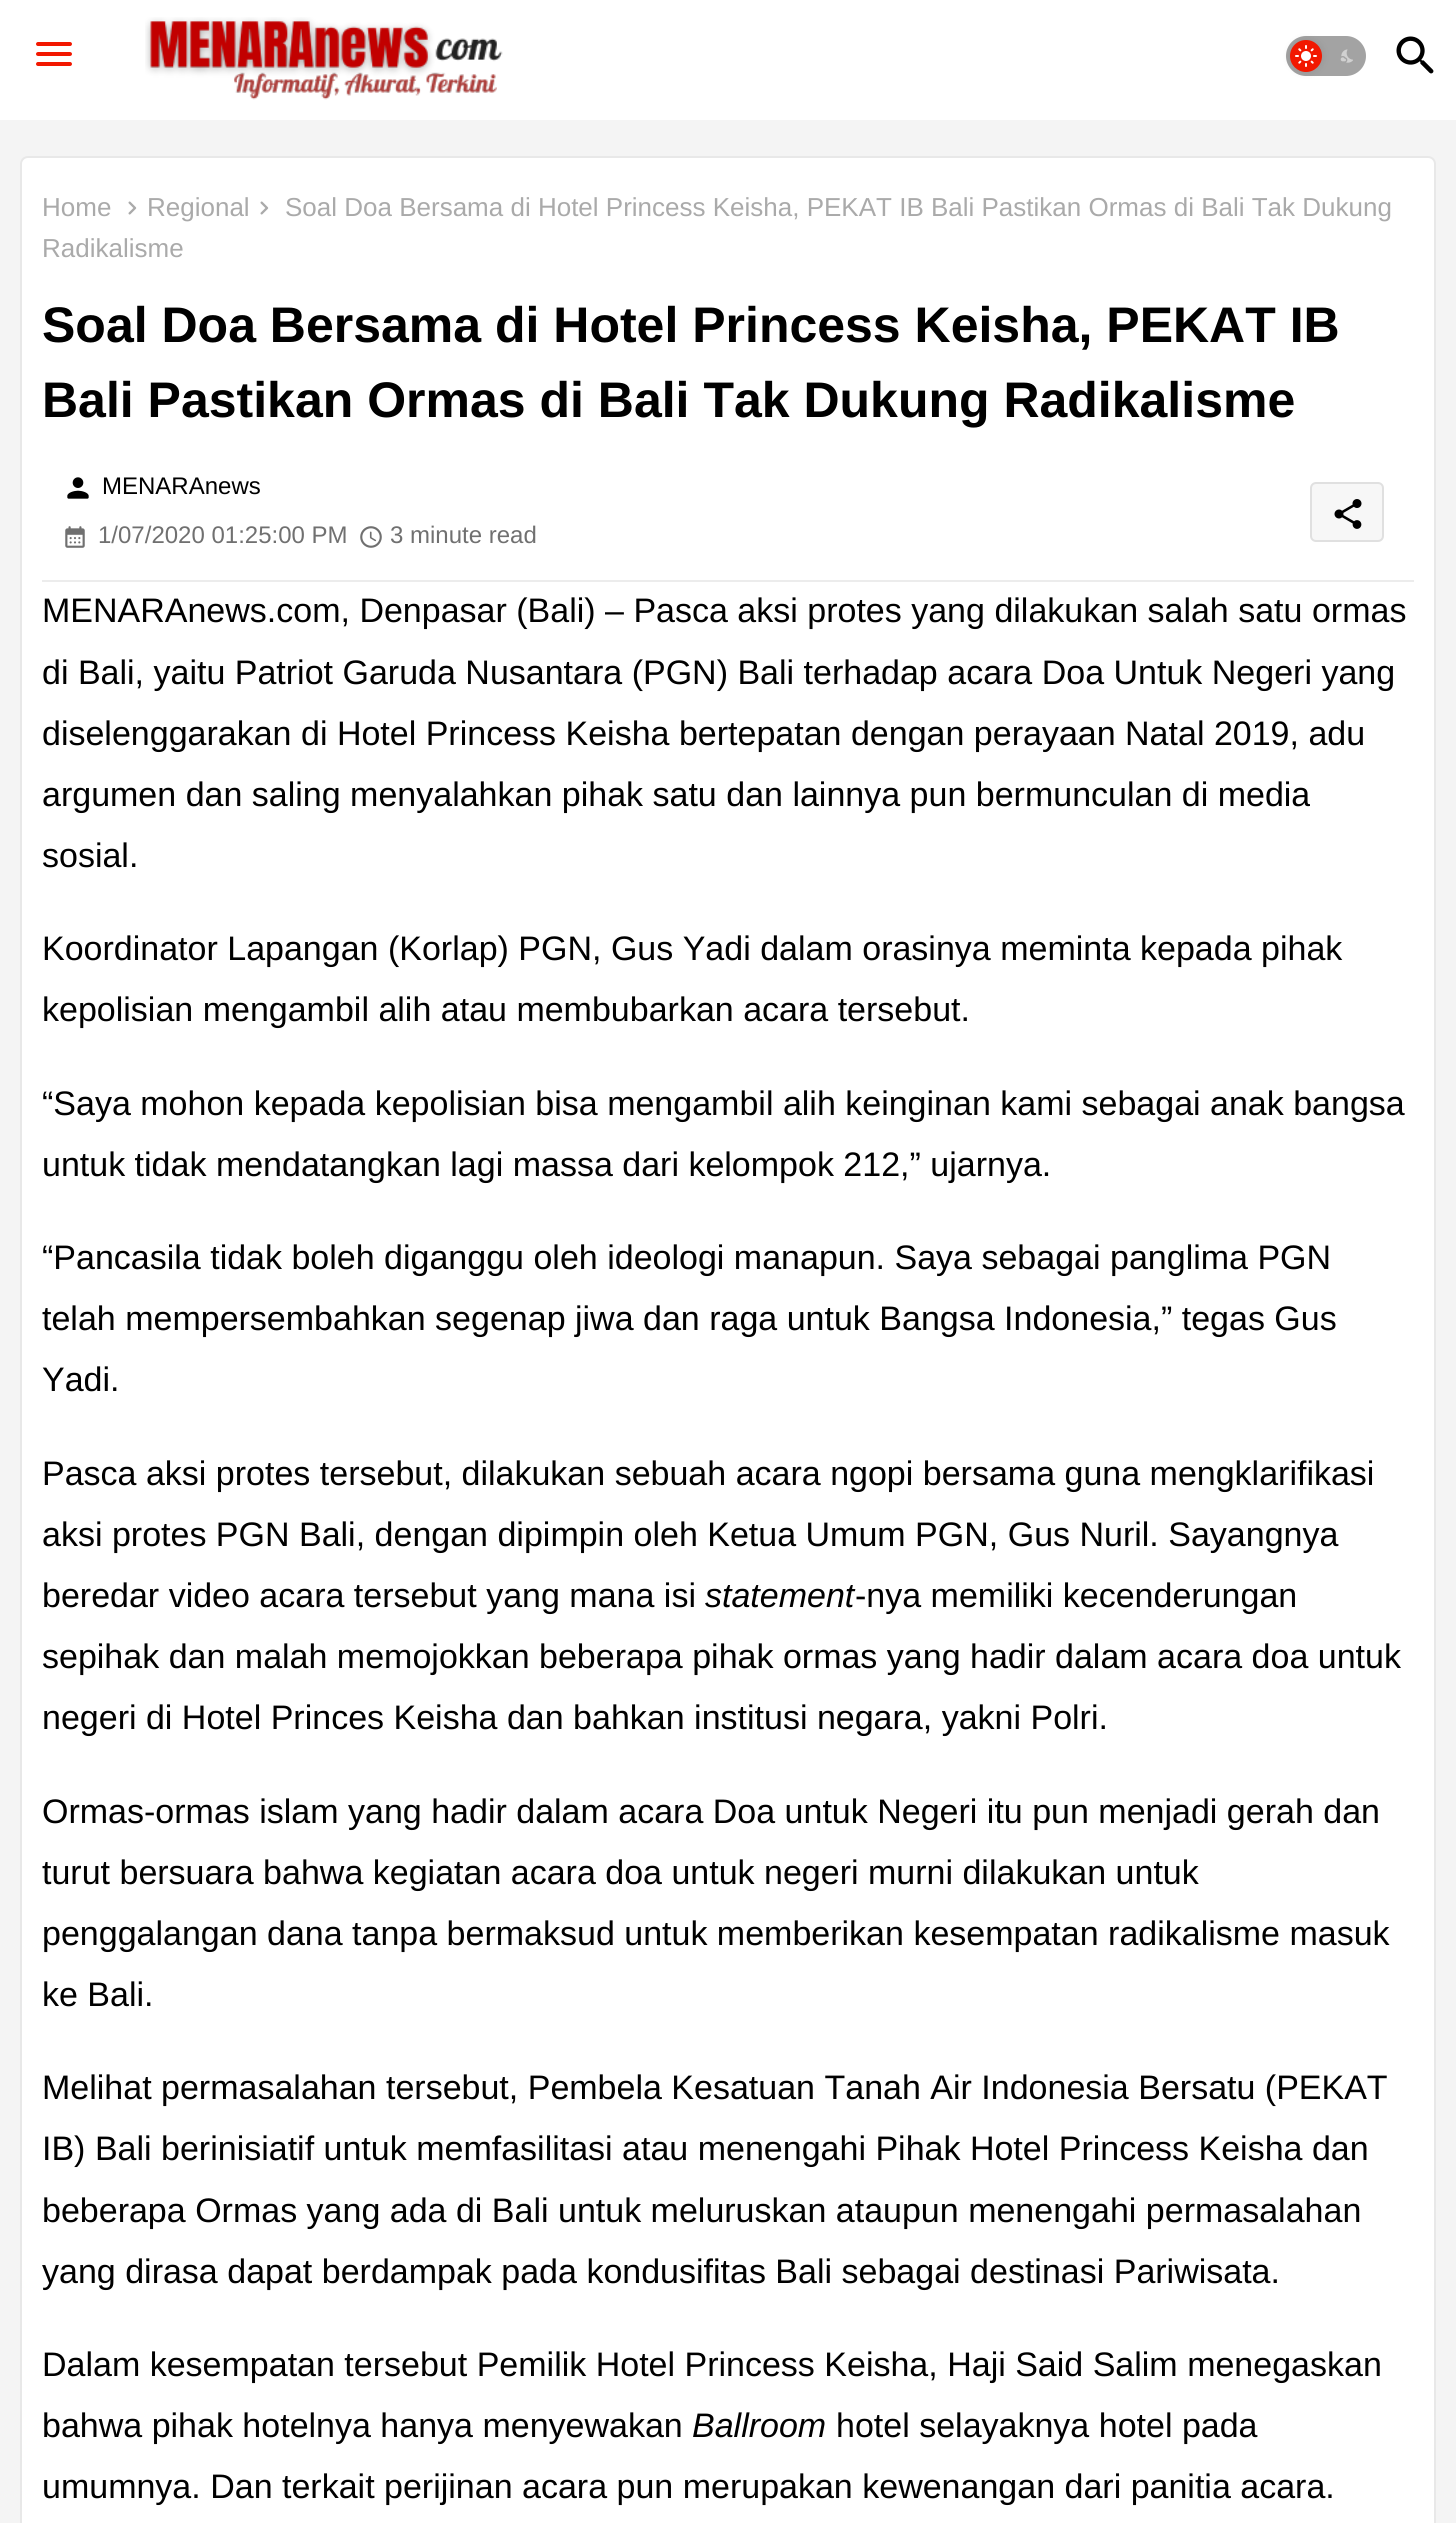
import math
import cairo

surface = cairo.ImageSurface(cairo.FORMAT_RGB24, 1456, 2523)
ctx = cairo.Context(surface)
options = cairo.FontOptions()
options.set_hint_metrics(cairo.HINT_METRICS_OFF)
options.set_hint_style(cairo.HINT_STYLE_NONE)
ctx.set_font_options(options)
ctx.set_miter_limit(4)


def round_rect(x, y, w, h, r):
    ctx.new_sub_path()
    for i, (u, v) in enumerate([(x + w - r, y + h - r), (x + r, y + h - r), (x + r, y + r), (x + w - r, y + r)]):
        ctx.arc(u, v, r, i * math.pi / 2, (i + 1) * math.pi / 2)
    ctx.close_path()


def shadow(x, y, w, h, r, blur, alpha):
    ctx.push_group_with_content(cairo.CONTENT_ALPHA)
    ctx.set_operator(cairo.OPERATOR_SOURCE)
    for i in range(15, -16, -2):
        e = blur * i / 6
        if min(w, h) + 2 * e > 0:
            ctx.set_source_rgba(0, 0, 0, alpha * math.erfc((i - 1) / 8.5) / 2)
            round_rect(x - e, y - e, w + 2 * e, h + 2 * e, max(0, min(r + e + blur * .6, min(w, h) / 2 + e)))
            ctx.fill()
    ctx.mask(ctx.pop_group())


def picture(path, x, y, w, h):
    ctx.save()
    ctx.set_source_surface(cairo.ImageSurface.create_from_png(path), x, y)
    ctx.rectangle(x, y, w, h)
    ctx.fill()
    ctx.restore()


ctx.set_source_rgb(0.957, 0.957, 0.957)
ctx.paint()
ctx.set_source_rgb(1, 1, 1)
ctx.rectangle(0, 0, 1456, 120)
ctx.fill()
picture("img1.png", 36, 42, 36, 24)
picture("img2.png", 145, 17, 358, 83)
ctx.set_source_rgb(0.639, 0.639, 0.639)
round_rect(1286, 36, 80, 40, 20)
ctx.fill()
ctx.set_source_rgb(0, 0, 0)
shadow(1290, 40, 32, 32, 16, 4, 0.1)
ctx.set_source_rgb(0.949, 0.094, 0)
ctx.arc(1306, 56, 16, 0, 2 * math.pi)
ctx.fill()
picture("img3.png", 1295, 45, 22, 22)
picture("img4.png", 1340, 49, 13, 14)
picture("img5.png", 1396, 36, 38, 38)
ctx.set_source_rgb(1, 1, 1)
round_rect(20, 156, 1416, 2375, 8)
ctx.fill()
round_rect(21, 157, 1414, 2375, 7)
ctx.set_source_rgba(0.427, 0.427, 0.427, 0.16)
ctx.stroke()
ctx.select_font_face("Liberation Sans")
ctx.set_font_size(26)
ctx.set_source_rgb(0.667, 0.667, 0.667)
ctx.move_to(42, 216)
ctx.show_text("Home")
picture("img6.png", 128, 201, 9, 14)
ctx.move_to(147, 216)
ctx.show_text("Regional")
picture("img6.png", 260, 201, 9, 14)
ctx.move_to(285, 216)
ctx.show_text("Soal Doa Bersama di Hotel Princess Keisha, PEKAT IB Bali Pastikan Ormas di Bali Tak Dukung")
ctx.move_to(42, 257)
ctx.show_text("Radikalisme")
ctx.select_font_face("Liberation Sans", cairo.FONT_SLANT_NORMAL, cairo.FONT_WEIGHT_BOLD)
ctx.set_font_size(50)
ctx.set_source_rgb(0, 0, 0)
ctx.move_to(42, 342)
ctx.show_text("Soal Doa Bersama di Hotel Princess Keisha, PEKAT IB")
ctx.move_to(42, 417)
ctx.show_text("Bali Pastikan Ormas di Bali Tak Dukung Radikalisme")
ctx.set_source_rgb(0.925, 0.925, 0.925)
ctx.rectangle(42, 580, 1372, 2)
ctx.fill()
picture("img7.png", 67, 477, 22, 22)
ctx.select_font_face("Liberation Sans")
ctx.set_font_size(24)
ctx.set_source_rgb(0, 0, 0)
ctx.move_to(102, 494)
ctx.show_text("MENARAnews")
picture("img8.png", 65, 526, 20, 22)
ctx.set_source_rgb(0.439, 0.439, 0.439)
ctx.move_to(98, 543)
ctx.show_text("1/07/2020 01:25:00 PM")
picture("img9.png", 360, 526, 22, 22)
ctx.move_to(390, 543)
ctx.show_text("3 minute read")
ctx.set_source_rgb(0.965, 0.965, 0.965)
round_rect(1311, 483, 72, 58, 5)
ctx.fill_preserve()
ctx.set_source_rgb(0.878, 0.878, 0.878)
ctx.stroke()
picture("img10.png", 1334, 499, 28, 30)
ctx.set_font_size(34)
ctx.set_source_rgb(0, 0, 0)
ctx.move_to(42, 622)
ctx.show_text("MENARAnews.com, Denpasar (Bali) – Pasca aksi protes yang dilakukan salah satu ormas")
ctx.move_to(42, 684)
ctx.show_text("di Bali, yaitu Patriot Garuda Nusantara (PGN) Bali terhadap acara Doa Untuk Negeri yang")
ctx.move_to(42, 745)
ctx.show_text("diselenggarakan di Hotel Princess Keisha bertepatan dengan perayaan Natal 2019, adu")
ctx.move_to(42, 806)
ctx.show_text("argumen dan saling menyalahkan pihak satu dan lainnya pun bermunculan di media")
ctx.move_to(42, 867)
ctx.show_text("sosial.")
ctx.move_to(42, 960)
ctx.show_text("Koordinator Lapangan (Korlap) PGN, Gus Yadi dalam orasinya meminta kepada pihak")
ctx.move_to(42, 1021)
ctx.show_text("kepolisian mengambil alih atau membubarkan acara tersebut.")
ctx.move_to(42, 1115)
ctx.show_text("“Saya mohon kepada kepolisian bisa mengambil alih keinginan kami sebagai anak bangsa")
ctx.move_to(42, 1176)
ctx.show_text("untuk tidak mendatangkan lagi massa dari kelompok 212,” ujarnya.")
ctx.move_to(42, 1269)
ctx.show_text("“Pancasila tidak boleh diganggu oleh ideologi manapun. Saya sebagai panglima PGN")
ctx.move_to(42, 1330)
ctx.show_text("telah mempersembahkan segenap jiwa dan raga untuk Bangsa Indonesia,” tegas Gus")
ctx.move_to(42, 1391)
ctx.show_text("Yadi.")
ctx.move_to(42, 1485)
ctx.show_text("Pasca aksi protes tersebut, dilakukan sebuah acara ngopi bersama guna mengklarifikasi")
ctx.move_to(42, 1546)
ctx.show_text("aksi protes PGN Bali, dengan dipimpin oleh Ketua Umum PGN, Gus Nuril. Sayangnya")
ctx.move_to(42, 1607)
ctx.show_text("beredar video acara tersebut yang mana isi")
ctx.select_font_face("Liberation Sans", cairo.FONT_SLANT_ITALIC)
ctx.move_to(705, 1607)
ctx.show_text("statement")
ctx.select_font_face("Liberation Sans")
ctx.move_to(855, 1607)
ctx.show_text("-nya memiliki kecenderungan")
ctx.move_to(42, 1668)
ctx.show_text("sepihak dan malah memojokkan beberapa pihak ormas yang hadir dalam acara doa untuk")
ctx.move_to(42, 1729)
ctx.show_text("negeri di Hotel Princes Keisha dan bahkan institusi negara, yakni Polri.")
ctx.move_to(42, 1823)
ctx.show_text("Ormas-ormas islam yang hadir dalam acara Doa untuk Negeri itu pun menjadi gerah dan")
ctx.move_to(42, 1884)
ctx.show_text("turut bersuara bahwa kegiatan acara doa untuk negeri murni dilakukan untuk")
ctx.move_to(42, 1945)
ctx.show_text("penggalangan dana tanpa bermaksud untuk memberikan kesempatan radikalisme masuk")
ctx.move_to(42, 2006)
ctx.show_text("ke Bali.")
ctx.move_to(42, 2099)
ctx.show_text("Melihat permasalahan tersebut, Pembela Kesatuan Tanah Air Indonesia Bersatu (PEKAT")
ctx.move_to(42, 2160)
ctx.show_text("IB) Bali berinisiatif untuk memfasilitasi atau menengahi Pihak Hotel Princess Keisha dan")
ctx.move_to(42, 2222)
ctx.show_text("beberapa Ormas yang ada di Bali untuk meluruskan ataupun menengahi permasalahan")
ctx.move_to(42, 2283)
ctx.show_text("yang dirasa dapat berdampak pada kondusifitas Bali sebagai destinasi Pariwisata.")
ctx.move_to(42, 2376)
ctx.show_text("Dalam kesempatan tersebut Pemilik Hotel Princess Keisha, Haji Said Salim menegaskan")
ctx.move_to(42, 2437)
ctx.show_text("bahwa pihak hotelnya hanya menyewakan")
ctx.select_font_face("Liberation Sans", cairo.FONT_SLANT_ITALIC)
ctx.move_to(692, 2437)
ctx.show_text("Ballroom")
ctx.select_font_face("Liberation Sans")
ctx.move_to(836, 2437)
ctx.show_text("hotel selayaknya hotel pada")
ctx.move_to(42, 2498)
ctx.show_text("umumnya. Dan terkait perijinan acara pun merupakan kewenangan dari panitia acara.")
surface.write_to_png("page.png")
